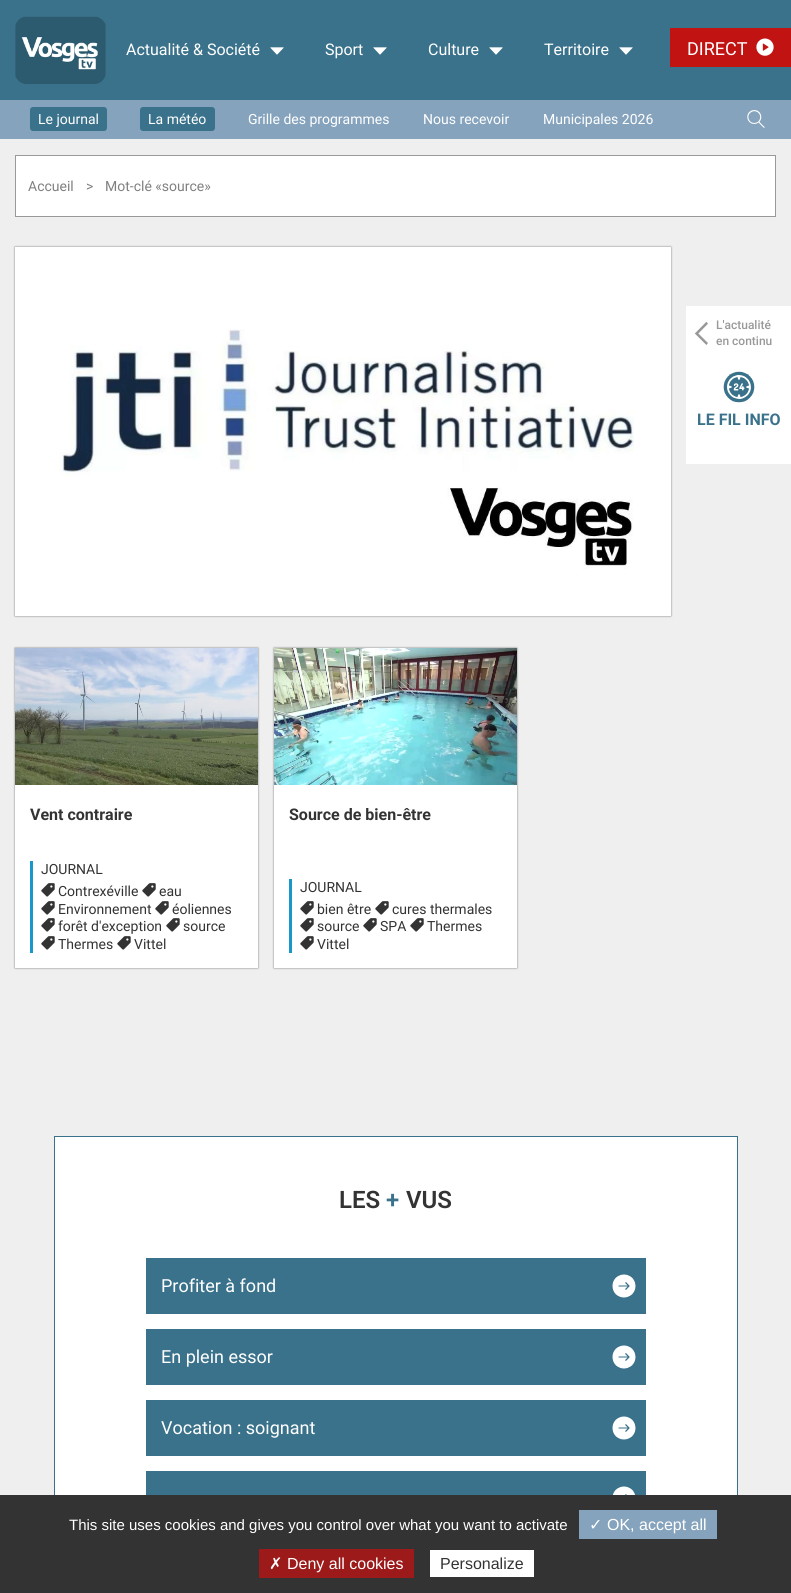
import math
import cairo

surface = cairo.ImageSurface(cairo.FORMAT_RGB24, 791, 1593)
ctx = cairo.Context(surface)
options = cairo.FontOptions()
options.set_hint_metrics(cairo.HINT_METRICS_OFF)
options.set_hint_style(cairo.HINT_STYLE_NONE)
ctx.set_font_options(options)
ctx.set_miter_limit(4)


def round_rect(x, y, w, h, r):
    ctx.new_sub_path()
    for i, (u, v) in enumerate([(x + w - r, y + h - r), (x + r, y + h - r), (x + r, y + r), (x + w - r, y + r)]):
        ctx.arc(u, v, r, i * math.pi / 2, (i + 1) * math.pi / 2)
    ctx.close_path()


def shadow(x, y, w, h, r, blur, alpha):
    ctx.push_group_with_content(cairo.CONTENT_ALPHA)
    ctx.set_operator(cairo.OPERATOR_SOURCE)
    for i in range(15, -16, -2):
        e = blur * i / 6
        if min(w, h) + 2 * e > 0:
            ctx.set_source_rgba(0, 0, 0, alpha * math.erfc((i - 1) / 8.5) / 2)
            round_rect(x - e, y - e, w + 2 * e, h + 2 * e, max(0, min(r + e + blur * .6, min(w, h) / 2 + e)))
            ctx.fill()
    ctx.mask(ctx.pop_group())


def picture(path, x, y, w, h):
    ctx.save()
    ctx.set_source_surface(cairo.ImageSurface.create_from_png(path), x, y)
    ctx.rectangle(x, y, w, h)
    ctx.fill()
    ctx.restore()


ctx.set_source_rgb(0.937, 0.937, 0.937)
ctx.paint()
ctx.set_source_rgb(0.227, 0.447, 0.545)
ctx.rectangle(0, 0, 791, 100)
ctx.fill()
picture("img1.png", 15, 16, 91, 68)
ctx.select_font_face("Roboto")
ctx.set_font_size(16)
ctx.set_source_rgb(1, 1, 1)
ctx.move_to(126, 55)
ctx.show_text("Actualité & Société")
picture("img2.png", 270, 47, 14, 8)
ctx.move_to(325, 55)
ctx.show_text("Sport")
picture("img2.png", 373, 47, 14, 8)
ctx.move_to(428, 55)
ctx.show_text("Culture")
picture("img2.png", 489, 47, 14, 8)
ctx.move_to(544, 55)
ctx.show_text("Territoire")
picture("img2.png", 619, 47, 14, 8)
ctx.set_source_rgb(0.761, 0.075, 0.075)
ctx.rectangle(670, 28, 121, 39)
ctx.fill()
ctx.set_font_size(18)
ctx.set_source_rgb(1, 1, 1)
ctx.move_to(687, 55)
ctx.show_text("DIRECT")
picture("img3.png", 756, 38, 18, 18)
ctx.set_source_rgb(0.522, 0.639, 0.741)
ctx.rectangle(0, 100, 791, 39)
ctx.fill()
picture("img4.png", 747, 110, 18, 18)
ctx.set_source_rgb(0.227, 0.447, 0.545)
round_rect(30, 107, 77, 24, 3)
ctx.fill()
ctx.set_font_size(14)
ctx.set_source_rgb(1, 1, 1)
ctx.move_to(38, 124)
ctx.show_text("Le journal")
ctx.set_source_rgb(0.227, 0.447, 0.545)
round_rect(140, 107, 75, 24, 3)
ctx.fill()
ctx.set_source_rgb(1, 1, 1)
ctx.move_to(148, 124)
ctx.show_text("La météo")
ctx.move_to(248, 124)
ctx.show_text("Grille des programmes")
ctx.move_to(423, 124)
ctx.show_text("Nous recevoir")
ctx.move_to(543, 124)
ctx.show_text("Municipales 2026")
ctx.rectangle(15.5, 155.5, 760, 61)
ctx.fill_preserve()
ctx.set_source_rgb(0.6, 0.6, 0.6)
ctx.set_line_width(1)
ctx.stroke()
ctx.set_source_rgb(0.502, 0.502, 0.502)
ctx.move_to(28, 191)
ctx.show_text("Accueil")
ctx.move_to(86, 191)
ctx.show_text(">")
ctx.move_to(105, 191)
ctx.show_text("Mot-clé «source»")
ctx.set_source_rgb(0, 0, 0)
shadow(15, 247, 656, 369, 0, 1, 0.5)
ctx.set_source_rgb(1, 1, 1)
ctx.rectangle(15, 247, 656, 369)
ctx.fill()
picture("img5.png", 59, 329, 575, 240)
ctx.set_source_rgb(0, 0, 0)
shadow(15, 648, 243, 320, 0, 1, 0.5)
ctx.set_source_rgb(1, 1, 1)
ctx.rectangle(15, 785, 243, 183)
ctx.fill()
picture("img6.png", 15, 648, 243, 137)
ctx.select_font_face("Roboto", cairo.FONT_SLANT_NORMAL, cairo.FONT_WEIGHT_BOLD)
ctx.set_font_size(16)
ctx.set_source_rgb(0.2, 0.2, 0.2)
ctx.move_to(30, 820)
ctx.show_text("Vent contraire")
ctx.set_source_rgb(0.098, 0.588, 0.8)
ctx.rectangle(30, 861, 3, 92)
ctx.fill()
ctx.select_font_face("Roboto")
ctx.set_font_size(14)
ctx.set_source_rgb(0.2, 0.2, 0.2)
ctx.move_to(41, 874)
ctx.show_text("JOURNAL")
picture("img7.png", 41, 883, 14, 14)
ctx.move_to(58, 896)
ctx.show_text("Contrexéville")
picture("img7.png", 142, 883, 14, 14)
ctx.move_to(159, 896)
ctx.show_text("eau")
picture("img7.png", 41, 901, 14, 14)
ctx.move_to(58, 914)
ctx.show_text("Environnement")
picture("img7.png", 155, 901, 14, 14)
ctx.move_to(172, 914)
ctx.show_text("éoliennes")
picture("img7.png", 41, 918, 14, 14)
ctx.move_to(58, 931)
ctx.show_text("forêt d'exception")
picture("img7.png", 166, 918, 14, 14)
ctx.move_to(183, 931)
ctx.show_text("source")
picture("img7.png", 41, 936, 14, 14)
ctx.move_to(58, 949)
ctx.show_text("Thermes")
picture("img7.png", 117, 936, 14, 14)
ctx.move_to(134, 949)
ctx.show_text("Vittel")
ctx.set_source_rgb(0, 0, 0)
shadow(274, 648, 243, 320, 0, 1, 0.5)
ctx.set_source_rgb(1, 1, 1)
ctx.rectangle(274, 785, 243, 183)
ctx.fill()
picture("img8.png", 274, 648, 243, 137)
ctx.select_font_face("Roboto", cairo.FONT_SLANT_NORMAL, cairo.FONT_WEIGHT_BOLD)
ctx.set_font_size(16)
ctx.set_source_rgb(0.2, 0.2, 0.2)
ctx.move_to(289, 820)
ctx.show_text("Source de bien-être")
ctx.set_source_rgb(0.098, 0.588, 0.8)
ctx.rectangle(289, 879, 3, 74)
ctx.fill()
ctx.select_font_face("Roboto")
ctx.set_font_size(14)
ctx.set_source_rgb(0.2, 0.2, 0.2)
ctx.move_to(300, 892)
ctx.show_text("JOURNAL")
picture("img7.png", 300, 901, 14, 14)
ctx.move_to(317, 914)
ctx.show_text("bien être")
picture("img7.png", 375, 901, 14, 14)
ctx.move_to(392, 914)
ctx.show_text("cures thermales")
picture("img7.png", 300, 918, 14, 14)
ctx.move_to(317, 931)
ctx.show_text("source")
picture("img7.png", 363, 918, 14, 14)
ctx.move_to(380, 931)
ctx.show_text("SPA")
picture("img7.png", 410, 918, 14, 14)
ctx.move_to(427, 931)
ctx.show_text("Thermes")
picture("img7.png", 300, 936, 14, 14)
ctx.move_to(317, 949)
ctx.show_text("Vittel")
ctx.set_source_rgb(1, 1, 1)
ctx.rectangle(686, 306, 105, 158)
ctx.fill()
picture("img9.png", 695, 321, 13, 24)
ctx.select_font_face("Roboto Medium")
ctx.set_font_size(12)
ctx.set_source_rgb(0.6, 0.6, 0.6)
ctx.move_to(716, 329)
ctx.show_text("L'actualité")
ctx.move_to(716, 345)
ctx.show_text("en continu")
picture("img10.png", 723, 371, 32, 32)
ctx.select_font_face("Roboto", cairo.FONT_SLANT_NORMAL, cairo.FONT_WEIGHT_BOLD)
ctx.set_font_size(16)
ctx.set_source_rgb(0.227, 0.447, 0.545)
ctx.move_to(697, 425)
ctx.show_text("LE FIL INFO")
ctx.set_source_rgb(1, 1, 1)
ctx.rectangle(55, 1137, 682, 358)
ctx.fill()
ctx.rectangle(54.5, 1136.5, 683, 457)
ctx.set_source_rgb(0.227, 0.447, 0.545)
ctx.stroke()
ctx.select_font_face("Roboto SemiBold")
ctx.set_font_size(24)
ctx.set_source_rgb(0.2, 0.2, 0.2)
ctx.move_to(339, 1208)
ctx.show_text("LES")
ctx.set_source_rgb(0.227, 0.447, 0.545)
ctx.move_to(386, 1208)
ctx.show_text("+")
ctx.set_source_rgb(0.2, 0.2, 0.2)
ctx.move_to(406, 1208)
ctx.show_text("VUS")
ctx.set_source_rgb(0.227, 0.447, 0.545)
ctx.rectangle(146, 1258, 500, 56)
ctx.fill()
ctx.select_font_face("Roboto")
ctx.set_font_size(18)
ctx.set_source_rgb(1, 1, 1)
ctx.move_to(161, 1292)
ctx.show_text("Profiter à fond")
picture("img11.png", 612, 1274, 24, 24)
ctx.set_source_rgb(0.227, 0.447, 0.545)
ctx.rectangle(146, 1329, 500, 56)
ctx.fill()
ctx.set_source_rgb(1, 1, 1)
ctx.move_to(161, 1363)
ctx.show_text("En plein essor")
picture("img11.png", 612, 1345, 24, 24)
ctx.set_source_rgb(0.227, 0.447, 0.545)
ctx.rectangle(146, 1400, 500, 56)
ctx.fill()
ctx.set_source_rgb(1, 1, 1)
ctx.move_to(161, 1434)
ctx.show_text("Vocation : soignant")
picture("img11.png", 612, 1416, 24, 24)
ctx.set_source_rgb(0.227, 0.447, 0.545)
ctx.rectangle(146, 1471, 500, 24)
ctx.fill()
picture("img12.png", 613, 1486, 22, 9)
ctx.set_source_rgb(0.2, 0.2, 0.2)
ctx.rectangle(0, 1495, 791, 98)
ctx.fill()
ctx.select_font_face("Liberation Sans")
ctx.set_font_size(15)
ctx.set_source_rgb(1, 1, 1)
ctx.move_to(69, 1530)
ctx.show_text("This site uses cookies and gives you control over what you want to activate")
ctx.set_source_rgb(0.522, 0.639, 0.741)
ctx.rectangle(579, 1510, 138, 29)
ctx.fill()
ctx.select_font_face("DejaVu Sans")
ctx.set_font_size(16)
ctx.set_source_rgb(1, 1, 1)
ctx.move_to(589, 1530)
ctx.show_text("✓")
ctx.select_font_face("Liberation Sans")
ctx.move_to(607, 1530)
ctx.show_text("OK, accept all")
ctx.set_source_rgb(0.612, 0.102, 0.102)
ctx.rectangle(259, 1549, 155, 29)
ctx.fill()
ctx.select_font_face("DejaVu Sans")
ctx.set_source_rgb(1, 1, 1)
ctx.move_to(269, 1569)
ctx.show_text("✗")
ctx.select_font_face("Liberation Sans")
ctx.move_to(287, 1569)
ctx.show_text("Deny all cookies")
ctx.rectangle(430, 1550, 104, 27)
ctx.fill()
ctx.set_source_rgb(0.2, 0.2, 0.2)
ctx.move_to(440, 1569)
ctx.show_text("Personalize")
surface.write_to_png("page.png")
